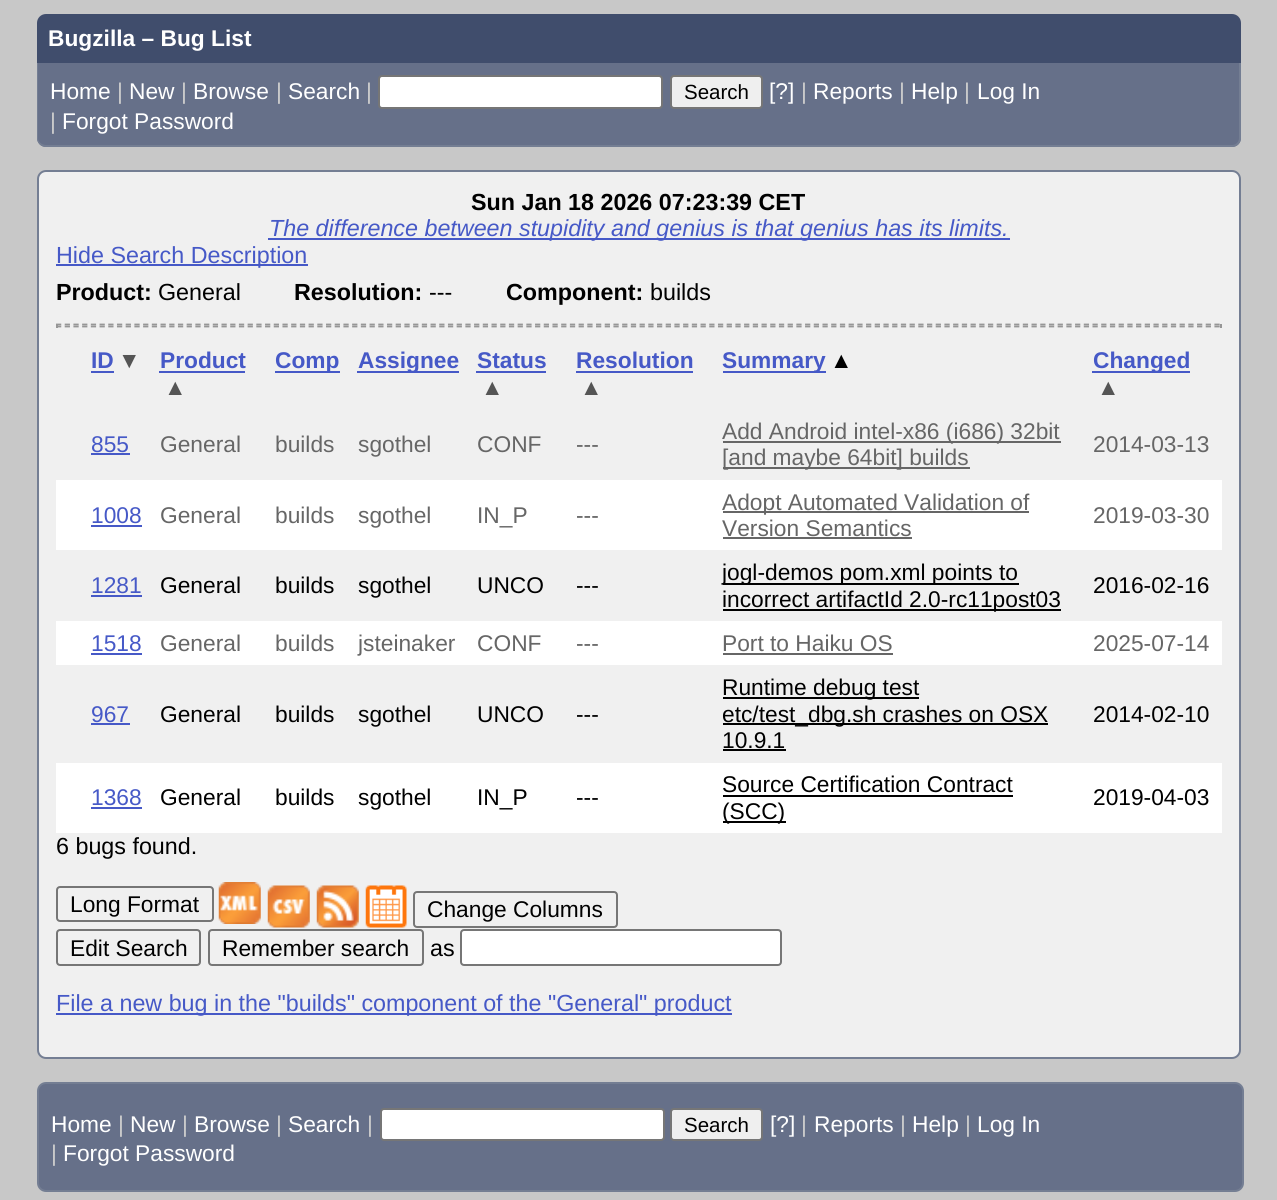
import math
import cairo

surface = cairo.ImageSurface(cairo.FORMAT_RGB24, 1277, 1200)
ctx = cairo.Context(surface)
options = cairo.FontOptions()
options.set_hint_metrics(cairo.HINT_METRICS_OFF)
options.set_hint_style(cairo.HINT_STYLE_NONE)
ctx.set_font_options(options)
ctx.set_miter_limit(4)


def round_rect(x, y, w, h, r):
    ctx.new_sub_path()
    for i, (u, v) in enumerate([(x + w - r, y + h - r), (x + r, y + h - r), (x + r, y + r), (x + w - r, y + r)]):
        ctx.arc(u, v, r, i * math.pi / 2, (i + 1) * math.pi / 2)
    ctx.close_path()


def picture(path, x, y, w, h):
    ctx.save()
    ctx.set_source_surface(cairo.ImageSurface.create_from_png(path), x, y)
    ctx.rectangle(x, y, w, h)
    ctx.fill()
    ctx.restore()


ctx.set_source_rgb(0.784, 0.784, 0.784)
ctx.paint()
ctx.set_source_rgb(0.251, 0.302, 0.424)
ctx.new_path()
ctx.move_to(46, 14)
ctx.line_to(1232, 14)
ctx.curve_to(1237, 14, 1241, 18, 1241, 23)
ctx.line_to(1241, 63)
ctx.line_to(37, 63)
ctx.line_to(37, 23)
ctx.curve_to(37, 18, 41, 14, 46, 14)
ctx.close_path()
ctx.fill()
ctx.select_font_face("Liberation Sans", cairo.FONT_SLANT_NORMAL, cairo.FONT_WEIGHT_BOLD)
ctx.set_font_size(22.75)
ctx.set_source_rgb(1, 1, 1)
ctx.move_to(48, 46)
ctx.show_text("Bugzilla – Bug List")
ctx.set_source_rgb(0.4, 0.439, 0.537)
ctx.new_path()
ctx.move_to(37, 63)
ctx.line_to(1241, 63)
ctx.line_to(1241, 138)
ctx.curve_to(1241, 143, 1237, 147, 1232, 147)
ctx.line_to(46, 147)
ctx.curve_to(41, 147, 37, 143, 37, 138)
ctx.close_path()
ctx.fill()
ctx.set_source_rgb(0.455, 0.494, 0.576)
ctx.set_fill_rule(cairo.FILL_RULE_EVEN_ODD)
ctx.new_path()
ctx.move_to(37, 63)
ctx.line_to(1241, 63)
ctx.line_to(1241, 138)
ctx.curve_to(1241, 143, 1237, 147, 1232, 147)
ctx.line_to(46, 147)
ctx.curve_to(41, 147, 37, 143, 37, 138)
ctx.close_path()
ctx.move_to(38, 63)
ctx.line_to(1239, 63)
ctx.line_to(1239, 138)
ctx.curve_to(1239, 142, 1236, 145, 1232, 145)
ctx.line_to(46, 145)
ctx.curve_to(42, 145, 38, 142, 38, 138)
ctx.close_path()
ctx.fill()
ctx.select_font_face("Liberation Sans")
ctx.set_source_rgb(1, 1, 1)
ctx.move_to(50, 99)
ctx.show_text("Home")
ctx.set_source_rgb(0.8, 0.8, 0.8)
ctx.move_to(117, 99)
ctx.show_text("|")
ctx.set_source_rgb(1, 1, 1)
ctx.move_to(129, 99)
ctx.show_text("New")
ctx.set_source_rgb(0.8, 0.8, 0.8)
ctx.move_to(181, 99)
ctx.show_text("|")
ctx.set_source_rgb(1, 1, 1)
ctx.move_to(193, 99)
ctx.show_text("Browse")
ctx.set_source_rgb(0.8, 0.8, 0.8)
ctx.move_to(276, 99)
ctx.show_text("|")
ctx.set_source_rgb(1, 1, 1)
ctx.move_to(288, 99)
ctx.show_text("Search")
ctx.set_source_rgb(0.8, 0.8, 0.8)
ctx.move_to(366, 99)
ctx.show_text("|")
ctx.set_source_rgb(1, 1, 1)
round_rect(379, 76, 283, 32, 3)
ctx.fill_preserve()
ctx.set_source_rgb(0.463, 0.463, 0.463)
ctx.stroke()
ctx.set_source_rgb(0.937, 0.937, 0.937)
round_rect(671, 76, 91, 32, 3)
ctx.fill_preserve()
ctx.set_source_rgb(0.463, 0.463, 0.463)
ctx.stroke()
ctx.set_font_size(20.5)
ctx.set_source_rgb(0, 0, 0)
ctx.move_to(684, 99)
ctx.show_text("Search")
ctx.set_font_size(22.75)
ctx.set_source_rgb(1, 1, 1)
ctx.move_to(769, 99)
ctx.show_text("[?]")
ctx.set_source_rgb(0.8, 0.8, 0.8)
ctx.move_to(801, 99)
ctx.show_text("|")
ctx.set_source_rgb(1, 1, 1)
ctx.move_to(813, 99)
ctx.show_text("Reports")
ctx.set_source_rgb(0.8, 0.8, 0.8)
ctx.move_to(899, 99)
ctx.show_text("|")
ctx.set_source_rgb(1, 1, 1)
ctx.move_to(911, 99)
ctx.show_text("Help")
ctx.set_source_rgb(0.8, 0.8, 0.8)
ctx.move_to(964, 99)
ctx.show_text("|")
ctx.set_source_rgb(1, 1, 1)
ctx.move_to(977, 99)
ctx.show_text("Log In")
ctx.set_source_rgb(0.8, 0.8, 0.8)
ctx.move_to(50, 129)
ctx.show_text("|")
ctx.set_source_rgb(1, 1, 1)
ctx.move_to(62, 129)
ctx.show_text("Forgot Password")
ctx.set_source_rgb(0.941, 0.941, 0.941)
round_rect(38, 171, 1202, 887, 8)
ctx.fill_preserve()
ctx.set_source_rgb(0.455, 0.494, 0.576)
ctx.stroke()
ctx.select_font_face("Liberation Sans", cairo.FONT_SLANT_NORMAL, cairo.FONT_WEIGHT_BOLD)
ctx.set_font_size(23.3)
ctx.set_source_rgb(0, 0, 0)
ctx.move_to(471, 210)
ctx.show_text("Sun Jan 18 2026 07:23:39 CET")
ctx.set_source_rgb(0.275, 0.349, 0.78)
ctx.rectangle(268, 238, 742, 2)
ctx.fill()
ctx.select_font_face("Liberation Sans", cairo.FONT_SLANT_ITALIC)
ctx.move_to(269, 236)
ctx.show_text("The difference between stupidity and genius is that genius has its limits.")
ctx.rectangle(56, 264, 252, 2)
ctx.fill()
ctx.select_font_face("Liberation Sans")
ctx.move_to(56, 263)
ctx.show_text("Hide Search Description")
ctx.select_font_face("Liberation Sans", cairo.FONT_SLANT_NORMAL, cairo.FONT_WEIGHT_BOLD)
ctx.set_source_rgb(0, 0, 0)
ctx.move_to(56, 300)
ctx.show_text("Product:")
ctx.select_font_face("Liberation Sans")
ctx.move_to(158, 300)
ctx.show_text("General")
ctx.select_font_face("Liberation Sans", cairo.FONT_SLANT_NORMAL, cairo.FONT_WEIGHT_BOLD)
ctx.move_to(294, 300)
ctx.show_text("Resolution:")
ctx.select_font_face("Liberation Sans")
ctx.move_to(429, 300)
ctx.show_text("---")
ctx.select_font_face("Liberation Sans", cairo.FONT_SLANT_NORMAL, cairo.FONT_WEIGHT_BOLD)
ctx.move_to(506, 300)
ctx.show_text("Component:")
ctx.select_font_face("Liberation Sans")
ctx.move_to(650, 300)
ctx.show_text("builds")
ctx.new_path()
ctx.move_to(56, 324.5)
ctx.line_to(1221.5, 324.5)
ctx.set_source_rgb(0.588, 0.588, 0.588)
ctx.set_line_width(1.8)
ctx.set_dash([5.25, 3.46])
ctx.stroke()
ctx.rectangle(1220, 324, 2, 4)
ctx.fill()
ctx.new_path()
ctx.move_to(56, 326.5)
ctx.line_to(1221.5, 326.5)
ctx.stroke()
ctx.rectangle(56, 324, 2, 4)
ctx.fill()
ctx.select_font_face("Liberation Sans", cairo.FONT_SLANT_NORMAL, cairo.FONT_WEIGHT_BOLD)
ctx.set_font_size(22.75)
ctx.set_source_rgb(0.275, 0.349, 0.78)
ctx.move_to(91, 368)
ctx.show_text("ID")
ctx.rectangle(91, 371, 23, 2)
ctx.fill()
ctx.set_source_rgb(0.333, 0.333, 0.333)
ctx.move_to(118, 368)
ctx.show_text("▼")
ctx.set_source_rgb(0.275, 0.349, 0.78)
ctx.move_to(160, 368)
ctx.show_text("Product")
ctx.rectangle(159, 371, 86, 2)
ctx.fill()
ctx.set_source_rgb(0.333, 0.333, 0.333)
ctx.move_to(164, 395)
ctx.show_text("▲")
ctx.set_source_rgb(0.275, 0.349, 0.78)
ctx.rectangle(275, 371, 65, 2)
ctx.fill()
ctx.move_to(275, 368)
ctx.show_text("Comp")
ctx.rectangle(357, 371, 102, 2)
ctx.fill()
ctx.move_to(358, 368)
ctx.show_text("Assignee")
ctx.move_to(477, 368)
ctx.show_text("Status")
ctx.rectangle(476, 371, 70, 2)
ctx.fill()
ctx.set_source_rgb(0.333, 0.333, 0.333)
ctx.move_to(481, 395)
ctx.show_text("▲")
ctx.set_source_rgb(0.275, 0.349, 0.78)
ctx.move_to(576, 368)
ctx.show_text("Resolution")
ctx.rectangle(576, 371, 117, 2)
ctx.fill()
ctx.set_source_rgb(0.333, 0.333, 0.333)
ctx.move_to(580, 395)
ctx.show_text("▲")
ctx.set_source_rgb(0.275, 0.349, 0.78)
ctx.rectangle(723, 371, 103, 2)
ctx.fill()
ctx.move_to(722, 368)
ctx.show_text("Summary")
ctx.set_source_rgb(0, 0, 0)
ctx.move_to(830, 368)
ctx.show_text("▲")
ctx.set_source_rgb(0.275, 0.349, 0.78)
ctx.rectangle(1092, 371, 98, 2)
ctx.fill()
ctx.move_to(1093, 368)
ctx.show_text("Changed")
ctx.set_source_rgb(0.333, 0.333, 0.333)
ctx.move_to(1097, 395)
ctx.show_text("▲")
ctx.select_font_face("Liberation Sans")
ctx.set_source_rgb(0.275, 0.349, 0.78)
ctx.move_to(91, 452)
ctx.show_text("855")
ctx.rectangle(91, 453, 39, 2)
ctx.fill()
ctx.set_source_rgb(0.4, 0.4, 0.4)
ctx.move_to(160, 452)
ctx.show_text("General")
ctx.move_to(275, 452)
ctx.show_text("builds")
ctx.move_to(358, 452)
ctx.show_text("sgothel")
ctx.move_to(477, 452)
ctx.show_text("CONF")
ctx.move_to(576, 452)
ctx.show_text("---")
ctx.rectangle(723, 441, 338, 2)
ctx.fill()
ctx.move_to(722, 439)
ctx.show_text("Add Android intel-x86 (i686) 32bit")
ctx.rectangle(723, 467, 247, 2)
ctx.fill()
ctx.move_to(722, 465)
ctx.show_text("[and maybe 64bit] builds")
ctx.move_to(1093, 452)
ctx.show_text("2014-03-13")
ctx.set_source_rgb(1, 1, 1)
ctx.rectangle(56, 480, 1166, 70)
ctx.fill()
ctx.set_source_rgb(0.275, 0.349, 0.78)
ctx.move_to(91, 523)
ctx.show_text("1008")
ctx.rectangle(91, 525, 51, 2)
ctx.fill()
ctx.set_source_rgb(0.4, 0.4, 0.4)
ctx.move_to(160, 523)
ctx.show_text("General")
ctx.move_to(275, 523)
ctx.show_text("builds")
ctx.move_to(358, 523)
ctx.show_text("sgothel")
ctx.move_to(477, 523)
ctx.show_text("IN_P")
ctx.move_to(576, 523)
ctx.show_text("---")
ctx.rectangle(723, 511, 306, 2)
ctx.fill()
ctx.move_to(722, 510)
ctx.show_text("Adopt Automated Validation of")
ctx.move_to(722, 536)
ctx.show_text("Version Semantics")
ctx.rectangle(723, 537, 189, 2)
ctx.fill()
ctx.move_to(1093, 523)
ctx.show_text("2019-03-30")
ctx.set_source_rgb(0.275, 0.349, 0.78)
ctx.move_to(91, 593)
ctx.show_text("1281")
ctx.rectangle(91, 595, 51, 2)
ctx.fill()
ctx.set_source_rgb(0, 0, 0)
ctx.move_to(160, 593)
ctx.show_text("General")
ctx.move_to(275, 593)
ctx.show_text("builds")
ctx.move_to(358, 593)
ctx.show_text("sgothel")
ctx.move_to(477, 593)
ctx.show_text("UNCO")
ctx.move_to(576, 593)
ctx.show_text("---")
ctx.rectangle(723, 583, 296, 2)
ctx.fill()
ctx.move_to(722, 580)
ctx.show_text("jogl-demos pom.xml points to")
ctx.rectangle(723, 609, 338, 2)
ctx.fill()
ctx.move_to(722, 607)
ctx.show_text("incorrect artifactId 2.0-rc11post03")
ctx.move_to(1093, 593)
ctx.show_text("2016-02-16")
ctx.set_source_rgb(1, 1, 1)
ctx.rectangle(56, 621, 1166, 44)
ctx.fill()
ctx.set_source_rgb(0.275, 0.349, 0.78)
ctx.move_to(91, 651)
ctx.show_text("1518")
ctx.rectangle(91, 653, 51, 2)
ctx.fill()
ctx.set_source_rgb(0.4, 0.4, 0.4)
ctx.move_to(160, 651)
ctx.show_text("General")
ctx.move_to(275, 651)
ctx.show_text("builds")
ctx.move_to(358, 651)
ctx.show_text("jsteinaker")
ctx.move_to(477, 651)
ctx.show_text("CONF")
ctx.move_to(576, 651)
ctx.show_text("---")
ctx.move_to(722, 651)
ctx.show_text("Port to Haiku OS")
ctx.rectangle(723, 653, 170, 2)
ctx.fill()
ctx.move_to(1093, 651)
ctx.show_text("2025-07-14")
ctx.set_source_rgb(0.275, 0.349, 0.78)
ctx.move_to(91, 722)
ctx.show_text("967")
ctx.rectangle(91, 723, 39, 2)
ctx.fill()
ctx.set_source_rgb(0, 0, 0)
ctx.move_to(160, 722)
ctx.show_text("General")
ctx.move_to(275, 722)
ctx.show_text("builds")
ctx.move_to(358, 722)
ctx.show_text("sgothel")
ctx.move_to(477, 722)
ctx.show_text("UNCO")
ctx.move_to(576, 722)
ctx.show_text("---")
ctx.rectangle(723, 697, 196, 2)
ctx.fill()
ctx.move_to(722, 695)
ctx.show_text("Runtime debug test")
ctx.rectangle(723, 723, 325, 2)
ctx.fill()
ctx.move_to(722, 722)
ctx.show_text("etc/test_dbg.sh crashes on OSX")
ctx.move_to(722, 748)
ctx.show_text("10.9.1")
ctx.rectangle(723, 749, 63, 2)
ctx.fill()
ctx.move_to(1093, 722)
ctx.show_text("2014-02-10")
ctx.set_source_rgb(1, 1, 1)
ctx.rectangle(56, 763, 1166, 70)
ctx.fill()
ctx.set_source_rgb(0.275, 0.349, 0.78)
ctx.move_to(91, 805)
ctx.show_text("1368")
ctx.rectangle(91, 807, 51, 2)
ctx.fill()
ctx.set_source_rgb(0, 0, 0)
ctx.move_to(160, 805)
ctx.show_text("General")
ctx.move_to(275, 805)
ctx.show_text("builds")
ctx.move_to(358, 805)
ctx.show_text("sgothel")
ctx.move_to(477, 805)
ctx.show_text("IN_P")
ctx.move_to(576, 805)
ctx.show_text("---")
ctx.move_to(722, 792)
ctx.show_text("Source Certification Contract")
ctx.rectangle(723, 795, 290, 2)
ctx.fill()
ctx.rectangle(723, 821, 63, 2)
ctx.fill()
ctx.move_to(722, 819)
ctx.show_text("(SCC)")
ctx.move_to(1093, 805)
ctx.show_text("2019-04-03")
ctx.set_font_size(23.3)
ctx.move_to(56, 854)
ctx.show_text("6 bugs found.")
round_rect(57, 887, 156, 34, 3)
ctx.set_source_rgb(0.463, 0.463, 0.463)
ctx.set_line_width(2)
ctx.set_dash([])
ctx.stroke()
ctx.set_font_size(22.75)
ctx.set_source_rgb(0, 0, 0)
ctx.move_to(70, 912)
ctx.show_text("Long Format")
picture("img1.png", 218, 882, 43, 42)
picture("img2.png", 267, 885, 43, 43)
picture("img3.png", 316, 885, 43, 43)
picture("img4.png", 365, 885, 42, 43)
round_rect(414, 892, 203, 35, 3)
ctx.set_source_rgb(0.463, 0.463, 0.463)
ctx.stroke()
ctx.set_source_rgb(0, 0, 0)
ctx.move_to(427, 917)
ctx.show_text("Change Columns")
round_rect(57, 930, 143, 35, 3)
ctx.set_source_rgb(0.463, 0.463, 0.463)
ctx.stroke()
ctx.set_source_rgb(0, 0, 0)
ctx.move_to(70, 956)
ctx.show_text("Edit Search")
round_rect(209, 930, 214, 35, 3)
ctx.set_source_rgb(0.463, 0.463, 0.463)
ctx.stroke()
ctx.set_source_rgb(0, 0, 0)
ctx.move_to(222, 956)
ctx.show_text("Remember search")
ctx.set_font_size(23.3)
ctx.move_to(430, 956)
ctx.show_text("as")
ctx.set_source_rgb(1, 1, 1)
round_rect(461, 930, 320, 35, 3)
ctx.fill_preserve()
ctx.set_source_rgb(0.463, 0.463, 0.463)
ctx.stroke()
ctx.set_source_rgb(0.275, 0.349, 0.78)
ctx.rectangle(56, 1013, 676, 2)
ctx.fill()
ctx.move_to(56, 1011)
ctx.show_text("File a new bug in the \"builds\" component of the \"General\" product")
ctx.set_source_rgb(0.4, 0.439, 0.537)
round_rect(38, 1083, 1205, 108, 8)
ctx.fill_preserve()
ctx.set_source_rgb(0.455, 0.494, 0.576)
ctx.stroke()
ctx.set_font_size(22.75)
ctx.set_source_rgb(1, 1, 1)
ctx.move_to(51, 1132)
ctx.show_text("Home")
ctx.set_source_rgb(0.8, 0.8, 0.8)
ctx.move_to(118, 1132)
ctx.show_text("|")
ctx.set_source_rgb(1, 1, 1)
ctx.move_to(130, 1132)
ctx.show_text("New")
ctx.set_source_rgb(0.8, 0.8, 0.8)
ctx.move_to(182, 1132)
ctx.show_text("|")
ctx.set_source_rgb(1, 1, 1)
ctx.move_to(194, 1132)
ctx.show_text("Browse")
ctx.set_source_rgb(0.8, 0.8, 0.8)
ctx.move_to(276, 1132)
ctx.show_text("|")
ctx.set_source_rgb(1, 1, 1)
ctx.move_to(288, 1132)
ctx.show_text("Search")
ctx.set_source_rgb(0.8, 0.8, 0.8)
ctx.move_to(367, 1132)
ctx.show_text("|")
ctx.set_source_rgb(1, 1, 1)
round_rect(381, 1109, 283, 31, 3)
ctx.fill_preserve()
ctx.set_source_rgb(0.463, 0.463, 0.463)
ctx.stroke()
ctx.set_source_rgb(0.937, 0.937, 0.937)
round_rect(671, 1109, 91, 31, 3)
ctx.fill_preserve()
ctx.set_source_rgb(0.463, 0.463, 0.463)
ctx.stroke()
ctx.set_font_size(20.5)
ctx.set_source_rgb(0, 0, 0)
ctx.move_to(684, 1132)
ctx.show_text("Search")
ctx.set_font_size(22.75)
ctx.set_source_rgb(1, 1, 1)
ctx.move_to(770, 1132)
ctx.show_text("[?]")
ctx.set_source_rgb(0.8, 0.8, 0.8)
ctx.move_to(801, 1132)
ctx.show_text("|")
ctx.set_source_rgb(1, 1, 1)
ctx.move_to(814, 1132)
ctx.show_text("Reports")
ctx.set_source_rgb(0.8, 0.8, 0.8)
ctx.move_to(900, 1132)
ctx.show_text("|")
ctx.set_source_rgb(1, 1, 1)
ctx.move_to(912, 1132)
ctx.show_text("Help")
ctx.set_source_rgb(0.8, 0.8, 0.8)
ctx.move_to(965, 1132)
ctx.show_text("|")
ctx.set_source_rgb(1, 1, 1)
ctx.move_to(977, 1132)
ctx.show_text("Log In")
ctx.set_source_rgb(0.8, 0.8, 0.8)
ctx.move_to(51, 1161)
ctx.show_text("|")
ctx.set_source_rgb(1, 1, 1)
ctx.move_to(63, 1161)
ctx.show_text("Forgot Password")
surface.write_to_png("page.png")
